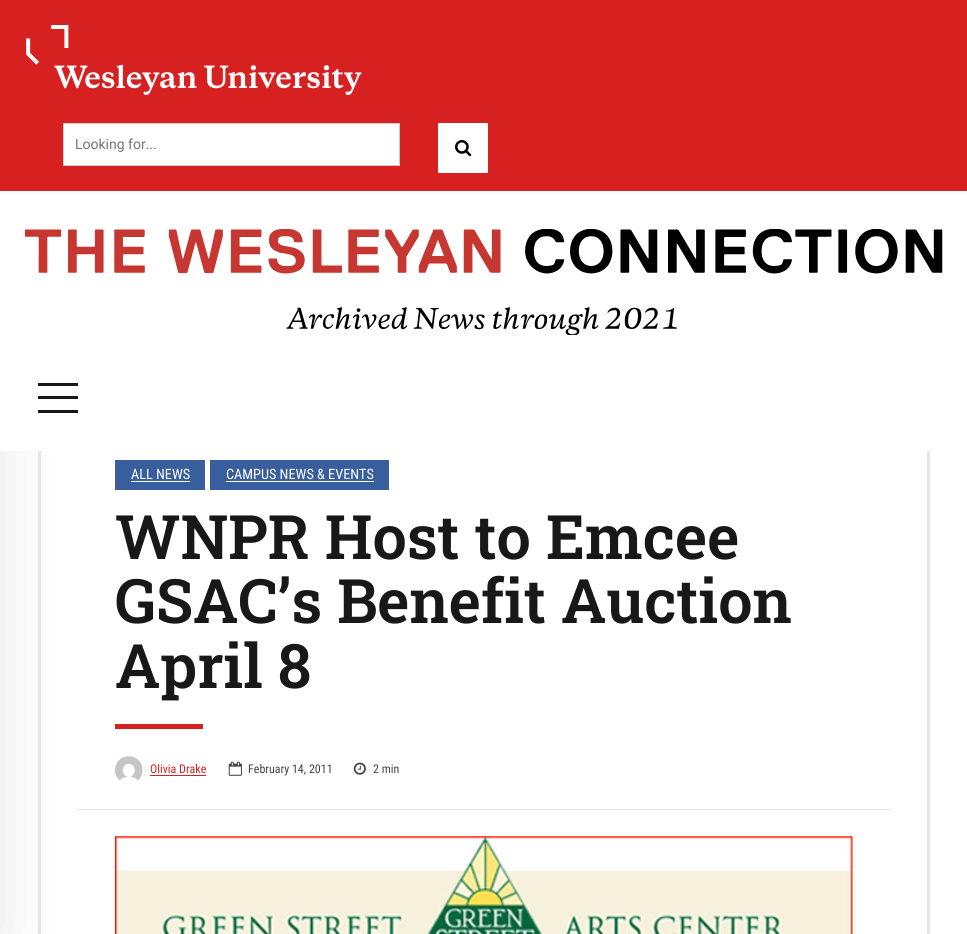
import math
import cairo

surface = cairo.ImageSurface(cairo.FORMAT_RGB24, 967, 934)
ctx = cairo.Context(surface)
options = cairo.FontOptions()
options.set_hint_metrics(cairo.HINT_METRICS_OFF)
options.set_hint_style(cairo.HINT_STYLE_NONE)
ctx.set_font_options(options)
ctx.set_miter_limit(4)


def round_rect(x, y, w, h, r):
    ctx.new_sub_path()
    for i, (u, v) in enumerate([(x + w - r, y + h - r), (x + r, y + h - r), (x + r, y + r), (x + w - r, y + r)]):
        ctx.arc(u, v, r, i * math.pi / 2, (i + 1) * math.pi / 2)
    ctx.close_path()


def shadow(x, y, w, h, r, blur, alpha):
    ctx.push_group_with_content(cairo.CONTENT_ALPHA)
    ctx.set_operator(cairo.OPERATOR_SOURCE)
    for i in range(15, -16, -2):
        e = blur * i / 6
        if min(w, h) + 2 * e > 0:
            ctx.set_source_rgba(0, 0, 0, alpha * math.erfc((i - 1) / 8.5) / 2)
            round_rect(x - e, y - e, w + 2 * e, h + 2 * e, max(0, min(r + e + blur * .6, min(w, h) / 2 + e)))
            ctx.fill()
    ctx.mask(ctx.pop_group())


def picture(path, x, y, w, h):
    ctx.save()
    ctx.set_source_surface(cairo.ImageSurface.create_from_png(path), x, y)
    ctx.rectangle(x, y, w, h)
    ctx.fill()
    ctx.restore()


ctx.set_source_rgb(1, 1, 1)
ctx.paint()
ctx.rectangle(39.5, 421.5, 889, 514)
ctx.set_source_rgb(0.902, 0.902, 0.902)
ctx.set_line_width(3)
ctx.stroke()
ctx.rectangle(78, 809, 812, 1)
ctx.fill()
ctx.set_source_rgb(0, 0, 0)
shadow(-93, 0, 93, 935, 0, 31, 0.1)
ctx.set_source_rgb(1, 1, 1)
ctx.rectangle(0, 191, 930, 260)
ctx.fill()
ctx.set_source_rgb(0.843, 0.129, 0.129)
ctx.rectangle(0, 0, 967, 191)
ctx.fill()
picture("img1.png", 26, 25, 336, 70)
ctx.set_source_rgb(1, 1, 1)
ctx.rectangle(63.5, 123.5, 336, 42)
ctx.fill_preserve()
ctx.set_source_rgb(0.8, 0.8, 0.8)
ctx.set_line_width(1)
ctx.stroke()
ctx.select_font_face("Roboto")
ctx.set_font_size(14)
ctx.set_source_rgb(0.459, 0.459, 0.459)
ctx.move_to(75, 149)
ctx.show_text("Looking for...")
ctx.set_source_rgb(1, 1, 1)
ctx.rectangle(438, 123, 50, 50)
ctx.fill()
picture("img2.png", 455, 140, 17, 17)
picture("img3.png", 25, 229, 918, 106)
ctx.set_source_rgb(0.094, 0.094, 0.094)
ctx.rectangle(38, 383, 40, 3)
ctx.fill()
ctx.rectangle(38, 396, 40, 3)
ctx.fill()
ctx.rectangle(38, 410, 40, 3)
ctx.fill()
ctx.set_source_rgb(0.22, 0.369, 0.616)
ctx.rectangle(115, 460, 90, 30)
ctx.fill()
ctx.select_font_face("Roboto Condensed")
ctx.set_font_size(14.25)
ctx.set_source_rgb(1, 1, 1)
ctx.move_to(131, 479)
ctx.show_text("ALL NEWS")
ctx.rectangle(131, 481, 59, 1)
ctx.fill()
ctx.set_source_rgb(0.22, 0.369, 0.616)
ctx.rectangle(210, 460, 179, 30)
ctx.fill()
ctx.set_source_rgb(1, 1, 1)
ctx.move_to(226, 479)
ctx.show_text("CAMPUS NEWS & EVENTS")
ctx.rectangle(226, 481, 148, 1)
ctx.fill()
ctx.select_font_face("Roboto Slab SemiBold")
ctx.set_font_size(61.25)
ctx.set_source_rgb(0.094, 0.094, 0.094)
ctx.move_to(115, 559)
ctx.show_text("WNPR Host to Emcee")
ctx.move_to(115, 623)
ctx.show_text("GSAC’s Benefit Auction")
ctx.move_to(115, 688)
ctx.show_text("April 8")
ctx.set_source_rgb(0.843, 0.129, 0.129)
ctx.rectangle(115, 724, 88, 5)
ctx.fill()
ctx.set_source_rgb(0.929, 0.929, 0.929)
ctx.arc(129, 770, 14, 0, 2 * math.pi)
ctx.fill()
picture("img4.png", 115, 756, 28, 28)
ctx.select_font_face("Roboto Condensed")
ctx.set_font_size(12)
ctx.set_source_rgb(0.843, 0.129, 0.129)
ctx.move_to(150, 773)
ctx.show_text("Olivia Drake")
ctx.rectangle(150, 775, 56, 1)
ctx.fill()
picture("img5.png", 228, 761, 14, 15)
ctx.set_source_rgb(0.275, 0.275, 0.275)
ctx.move_to(248, 773)
ctx.show_text("February 14, 2011")
picture("img6.png", 353, 762, 13, 13)
ctx.move_to(373, 773)
ctx.show_text("2 min")
picture("img7.png", 115, 836, 738, 98)
surface.write_to_png("page.png")
